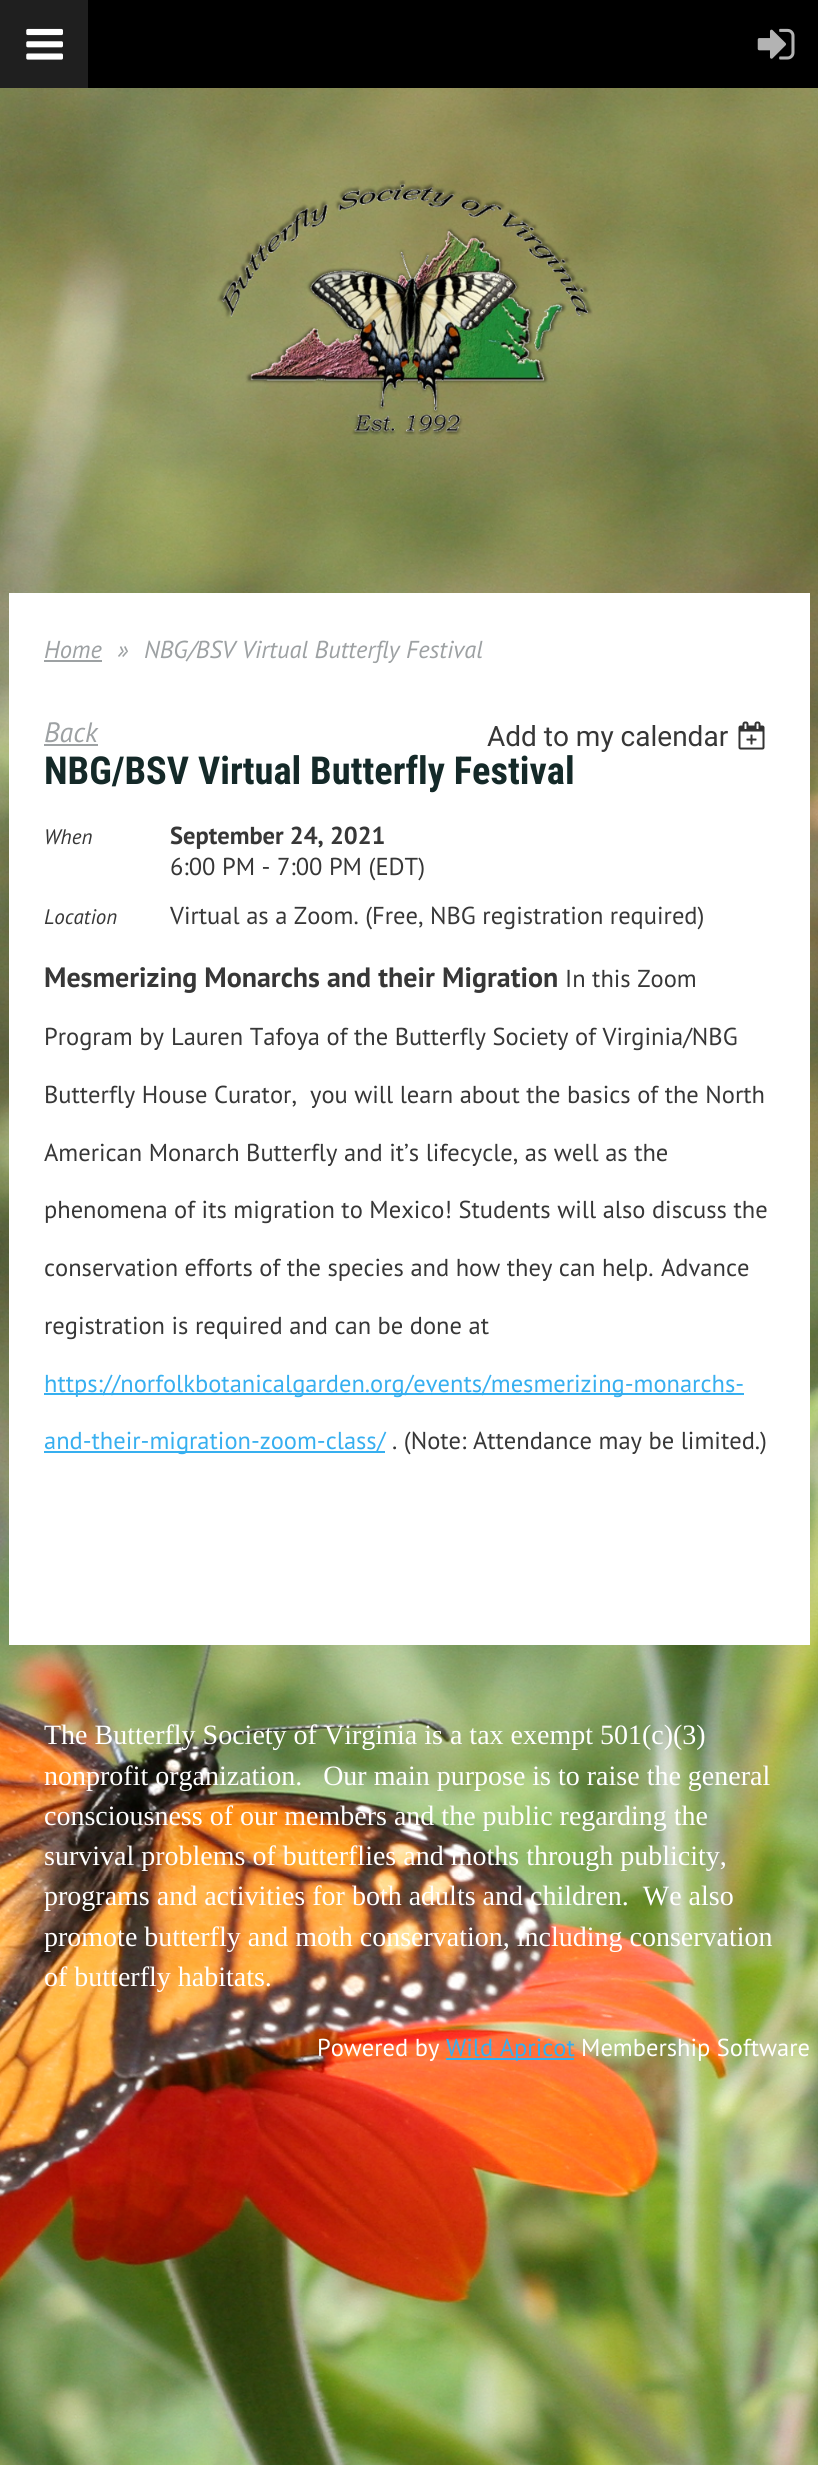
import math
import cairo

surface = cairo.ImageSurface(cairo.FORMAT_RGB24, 818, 2465)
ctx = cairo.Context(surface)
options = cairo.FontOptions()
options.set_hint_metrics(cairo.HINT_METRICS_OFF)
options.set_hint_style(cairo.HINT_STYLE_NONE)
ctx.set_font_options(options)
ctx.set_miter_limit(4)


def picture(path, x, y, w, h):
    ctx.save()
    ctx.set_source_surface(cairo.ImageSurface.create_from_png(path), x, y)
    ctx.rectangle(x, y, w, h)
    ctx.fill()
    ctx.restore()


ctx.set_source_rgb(1, 1, 1)
ctx.paint()
picture("img1.png", 0, 88, 818, 2377)
ctx.set_source_rgb(0, 0, 0)
ctx.rectangle(88, 0, 730, 88)
ctx.fill()
ctx.set_source_rgb(0.122, 0.122, 0.122)
ctx.rectangle(0, 0, 88, 88)
ctx.fill()
picture("img2.png", 26, 28, 37, 32)
picture("img3.png", 757, 28, 38, 32)
picture("img4.png", 217, 180, 376, 255)
ctx.set_source_rgb(1, 1, 1)
ctx.rectangle(9, 593, 801, 1052)
ctx.fill()
ctx.select_font_face("PT Sans", cairo.FONT_SLANT_ITALIC)
ctx.set_font_size(24.5)
ctx.set_source_rgb(0.616, 0.631, 0.639)
ctx.move_to(44, 658)
ctx.show_text("Home")
ctx.rectangle(44, 660, 58, 2)
ctx.fill()
ctx.move_to(117, 658)
ctx.show_text("»")
ctx.move_to(144, 658)
ctx.show_text("NBG/BSV Virtual Butterfly Festival")
ctx.set_font_size(28)
ctx.move_to(44, 742)
ctx.show_text("Back")
ctx.rectangle(44, 744, 54, 2)
ctx.fill()
ctx.select_font_face("Roboto")
ctx.set_source_rgb(0.216, 0.216, 0.216)
ctx.move_to(487, 746)
ctx.show_text("Add to my calendar")
picture("img5.png", 738, 721, 27, 29)
ctx.select_font_face("Roboto Condensed", cairo.FONT_SLANT_NORMAL, cairo.FONT_WEIGHT_BOLD)
ctx.set_font_size(38.5)
ctx.set_source_rgb(0.082, 0.161, 0.157)
ctx.move_to(44, 784)
ctx.show_text("NBG/BSV Virtual Butterfly Festival")
ctx.select_font_face("PT Sans", cairo.FONT_SLANT_ITALIC)
ctx.set_font_size(21)
ctx.set_source_rgb(0.216, 0.216, 0.216)
ctx.move_to(44, 844)
ctx.show_text("When")
ctx.select_font_face("PT Sans", cairo.FONT_SLANT_NORMAL, cairo.FONT_WEIGHT_BOLD)
ctx.set_font_size(24.5)
ctx.move_to(170, 844)
ctx.show_text("September 24, 2021")
ctx.select_font_face("PT Sans")
ctx.move_to(170, 875)
ctx.show_text("6:00 PM - 7:00 PM (EDT)")
ctx.select_font_face("PT Sans", cairo.FONT_SLANT_ITALIC)
ctx.set_font_size(21)
ctx.move_to(44, 924)
ctx.show_text("Location")
ctx.select_font_face("PT Sans")
ctx.set_font_size(24.5)
ctx.move_to(170, 924)
ctx.show_text("Virtual as a Zoom. (Free, NBG registration required)")
ctx.select_font_face("PT Sans", cairo.FONT_SLANT_NORMAL, cairo.FONT_WEIGHT_BOLD)
ctx.set_font_size(28)
ctx.move_to(44, 987)
ctx.show_text("Mesmerizing Monarchs and their Migration")
ctx.select_font_face("PT Sans")
ctx.set_font_size(24.5)
ctx.move_to(565, 987)
ctx.show_text("In this Zoom")
ctx.move_to(44, 1045)
ctx.show_text("Program by")
ctx.move_to(171, 1045)
ctx.show_text("Lauren Tafoya of the Butterfly Society of Virginia/NBG")
ctx.move_to(44, 1103)
ctx.show_text("Butterfly House Curator,  you will learn about the basics of the North")
ctx.move_to(44, 1161)
ctx.show_text("American Monarch Butterfly and it’s lifecycle, as well as the")
ctx.move_to(44, 1218)
ctx.show_text("phenomena of its migration to Mexico! Students will also discuss the")
ctx.move_to(44, 1276)
ctx.show_text("conservation efforts of the species and how they can help.")
ctx.move_to(661, 1276)
ctx.show_text("Advance")
ctx.move_to(44, 1334)
ctx.show_text("registration is required and can be done at")
ctx.set_source_rgb(0.212, 0.686, 0.941)
ctx.rectangle(44, 1393, 700, 2)
ctx.fill()
ctx.move_to(44, 1392)
ctx.show_text("https://norfolkbotanicalgarden.org/events/mesmerizing-monarchs-")
ctx.rectangle(44, 1451, 341, 2)
ctx.fill()
ctx.move_to(44, 1449)
ctx.show_text("and-their-migration-zoom-class/")
ctx.set_source_rgb(0.216, 0.216, 0.216)
ctx.move_to(392, 1449)
ctx.show_text(". (Note: Attendance may be limited.)")
ctx.select_font_face("Liberation Serif")
ctx.set_font_size(28)
ctx.set_source_rgb(1, 1, 1)
ctx.move_to(44, 1744)
ctx.show_text("The Butterfly Society of Virginia is a tax exempt 501(c)(3)")
ctx.move_to(44, 1785)
ctx.show_text("nonprofit organization.   Our main purpose is to raise the general")
ctx.move_to(44, 1825)
ctx.show_text("consciousness of our members and the public regarding the")
ctx.move_to(44, 1865)
ctx.show_text("survival problems of butterflies and moths through publicity,")
ctx.move_to(44, 1905)
ctx.show_text("programs and activities for both adults and children.  We also")
ctx.move_to(44, 1946)
ctx.show_text("promote butterfly and moth conservation, including conservation")
ctx.move_to(44, 1986)
ctx.show_text("of butterfly habitats.")
ctx.select_font_face("PT Sans")
ctx.set_font_size(24.5)
ctx.move_to(317, 2056)
ctx.show_text("Powered by")
ctx.set_source_rgb(0.212, 0.686, 0.941)
ctx.rectangle(446, 2058, 128, 2)
ctx.fill()
ctx.move_to(446, 2056)
ctx.show_text("Wild Apricot")
ctx.set_source_rgb(1, 1, 1)
ctx.move_to(581, 2056)
ctx.show_text("Membership Software")
surface.write_to_png("page.png")
